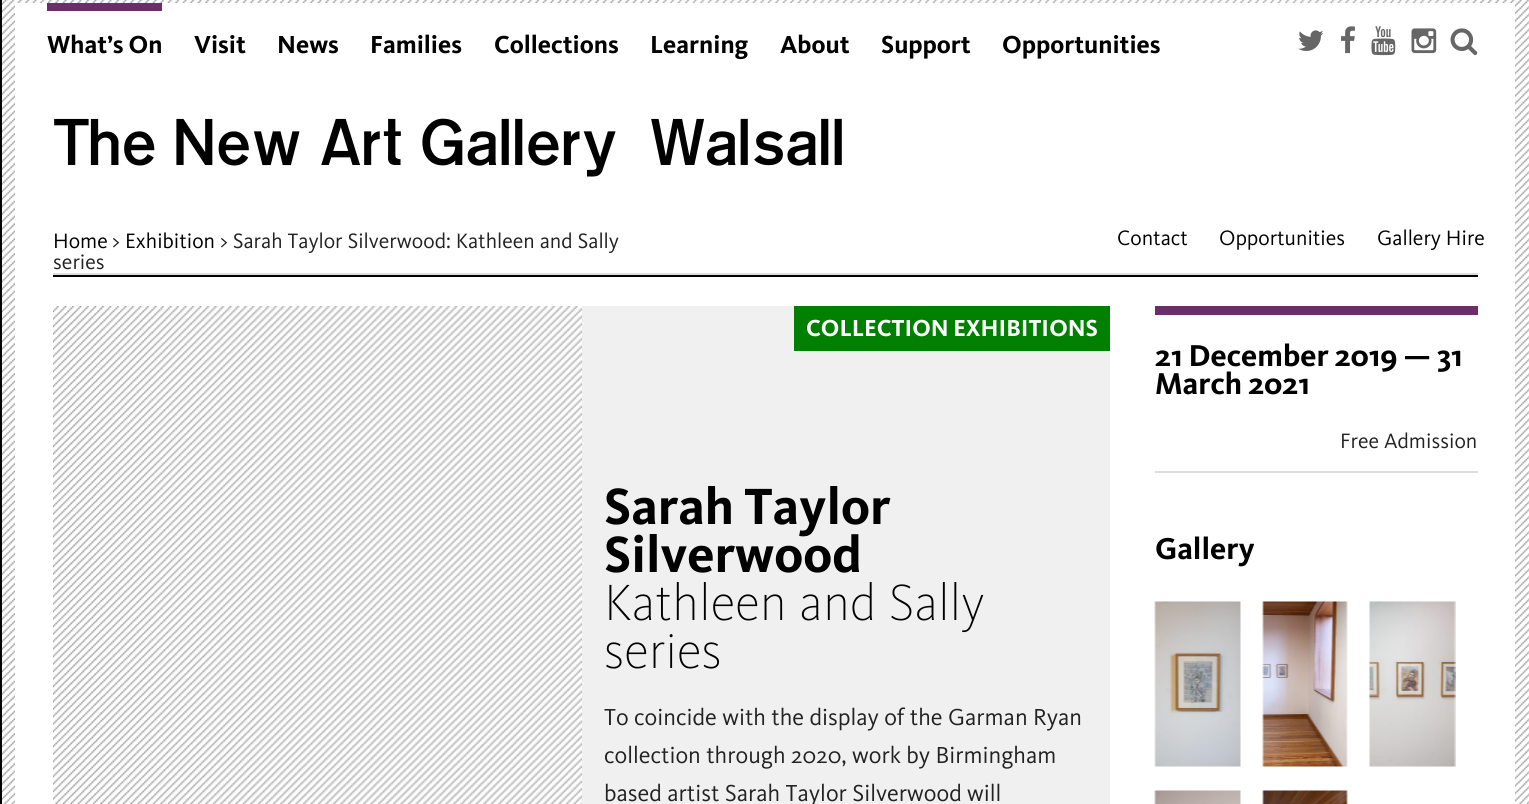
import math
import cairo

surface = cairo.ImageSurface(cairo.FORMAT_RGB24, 1529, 804)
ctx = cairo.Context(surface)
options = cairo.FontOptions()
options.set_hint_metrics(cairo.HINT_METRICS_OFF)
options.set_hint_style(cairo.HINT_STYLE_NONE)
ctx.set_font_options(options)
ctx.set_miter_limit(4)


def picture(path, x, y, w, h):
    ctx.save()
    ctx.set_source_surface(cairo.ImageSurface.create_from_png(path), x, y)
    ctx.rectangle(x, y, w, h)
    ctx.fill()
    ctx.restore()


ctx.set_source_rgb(1, 1, 1)
ctx.paint()
picture("img1.png", 2, 0, 1527, 804)
ctx.set_source_rgb(0, 0, 0)
ctx.rectangle(0, 0, 2, 804)
ctx.fill()
ctx.set_source_rgb(1, 1, 1)
ctx.rectangle(15, 3, 1500, 801)
ctx.fill()
picture("img2.png", 1298, 30, 26, 21)
picture("img3.png", 1341, 26, 14, 28)
picture("img4.png", 1371, 26, 25, 30)
picture("img5.png", 1411, 28, 26, 26)
picture("img6.png", 1450, 28, 28, 28)
ctx.set_source_rgb(0.431, 0.173, 0.42)
ctx.rectangle(47, 3, 115, 8)
ctx.fill()
ctx.select_font_face("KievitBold", cairo.FONT_SLANT_NORMAL, cairo.FONT_WEIGHT_BOLD)
ctx.set_font_size(25.5)
ctx.set_source_rgb(0, 0, 0)
ctx.move_to(47, 53)
ctx.show_text("What’s On")
ctx.move_to(194, 53)
ctx.show_text("Visit")
ctx.move_to(277, 53)
ctx.show_text("News")
ctx.move_to(370, 53)
ctx.show_text("Families")
ctx.move_to(494, 53)
ctx.show_text("Collections")
ctx.move_to(650, 53)
ctx.show_text("Learning")
ctx.move_to(780, 53)
ctx.show_text("About")
ctx.move_to(881, 53)
ctx.show_text("Support")
ctx.move_to(1002, 53)
ctx.show_text("Opportunities")
ctx.select_font_face("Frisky")
ctx.set_font_size(57.6)
ctx.move_to(53, 165)
ctx.show_text("The New Art Gallery  Walsall")
ctx.select_font_face("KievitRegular")
ctx.set_font_size(21.6)
ctx.move_to(53, 248)
ctx.show_text("Home")
ctx.set_source_rgb(0.133, 0.133, 0.133)
ctx.move_to(112, 248)
ctx.show_text(">")
ctx.set_source_rgb(0, 0, 0)
ctx.move_to(125, 248)
ctx.show_text("Exhibition")
ctx.set_source_rgb(0.133, 0.133, 0.133)
ctx.move_to(220, 248)
ctx.show_text("> Sarah Taylor Silverwood: Kathleen and Sally")
ctx.move_to(53, 269)
ctx.show_text("series")
ctx.set_source_rgb(0, 0, 0)
ctx.move_to(1117, 245)
ctx.show_text("Contact")
ctx.move_to(1219, 245)
ctx.show_text("Opportunities")
ctx.move_to(1377, 245)
ctx.show_text("Gallery Hire")
ctx.set_source_rgb(0.867, 0.867, 0.867)
ctx.rectangle(53, 273, 1425, 2)
ctx.fill()
ctx.set_source_rgb(0, 0, 0)
ctx.rectangle(53, 275, 1425, 2)
ctx.fill()
ctx.set_source_rgb(0.941, 0.941, 0.941)
ctx.rectangle(582, 306, 528, 498)
ctx.fill()
picture("img7.png", 53, 306, 529, 498)
ctx.set_source_rgb(0, 0.502, 0)
ctx.rectangle(794, 306, 316, 45)
ctx.fill()
ctx.select_font_face("KievitBold", cairo.FONT_SLANT_NORMAL, cairo.FONT_WEIGHT_BOLD)
ctx.set_font_size(24)
ctx.set_source_rgb(1, 1, 1)
ctx.move_to(806, 336)
ctx.show_text("COLLECTION EXHIBITIONS")
ctx.set_font_size(52.75)
ctx.set_source_rgb(0, 0, 0)
ctx.move_to(604, 524)
ctx.show_text("Sarah Taylor")
ctx.move_to(604, 572)
ctx.show_text("Silverwood")
ctx.select_font_face("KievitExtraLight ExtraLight")
ctx.move_to(604, 620)
ctx.show_text("Kathleen and Sally")
ctx.move_to(604, 668)
ctx.show_text("series")
ctx.select_font_face("KievitRegular")
ctx.set_font_size(24)
ctx.set_source_rgb(0.133, 0.133, 0.133)
ctx.move_to(604, 725)
ctx.show_text("To coincide with the display of the Garman Ryan")
ctx.move_to(604, 763)
ctx.show_text("collection through 2020, work by Birmingham")
ctx.move_to(604, 801)
ctx.show_text("based artist Sarah Taylor Silverwood will")
ctx.set_source_rgb(0.431, 0.173, 0.42)
ctx.rectangle(1155, 306, 323, 9)
ctx.fill()
ctx.select_font_face("KievitBold", cairo.FONT_SLANT_NORMAL, cairo.FONT_WEIGHT_BOLD)
ctx.set_font_size(31.25)
ctx.set_source_rgb(0, 0, 0)
ctx.move_to(1155, 366)
ctx.show_text("21 December 2019 — 31")
ctx.move_to(1155, 394)
ctx.show_text("March 2021")
ctx.set_source_rgb(0.867, 0.867, 0.867)
ctx.rectangle(1155, 471, 323, 2)
ctx.fill()
ctx.select_font_face("KievitRegular")
ctx.set_font_size(21.6)
ctx.set_source_rgb(0.133, 0.133, 0.133)
ctx.move_to(1340, 448)
ctx.show_text("Free Admission")
ctx.select_font_face("KievitBold", cairo.FONT_SLANT_NORMAL, cairo.FONT_WEIGHT_BOLD)
ctx.set_font_size(31.25)
ctx.set_source_rgb(0, 0, 0)
ctx.move_to(1155, 559)
ctx.show_text("Gallery")
picture("img8.png", 1154, 601, 87, 166)
picture("img9.png", 1262, 601, 86, 166)
picture("img10.png", 1369, 601, 87, 166)
picture("img11.png", 1154, 790, 87, 14)
picture("img12.png", 1262, 790, 86, 14)
surface.write_to_png("page.png")
